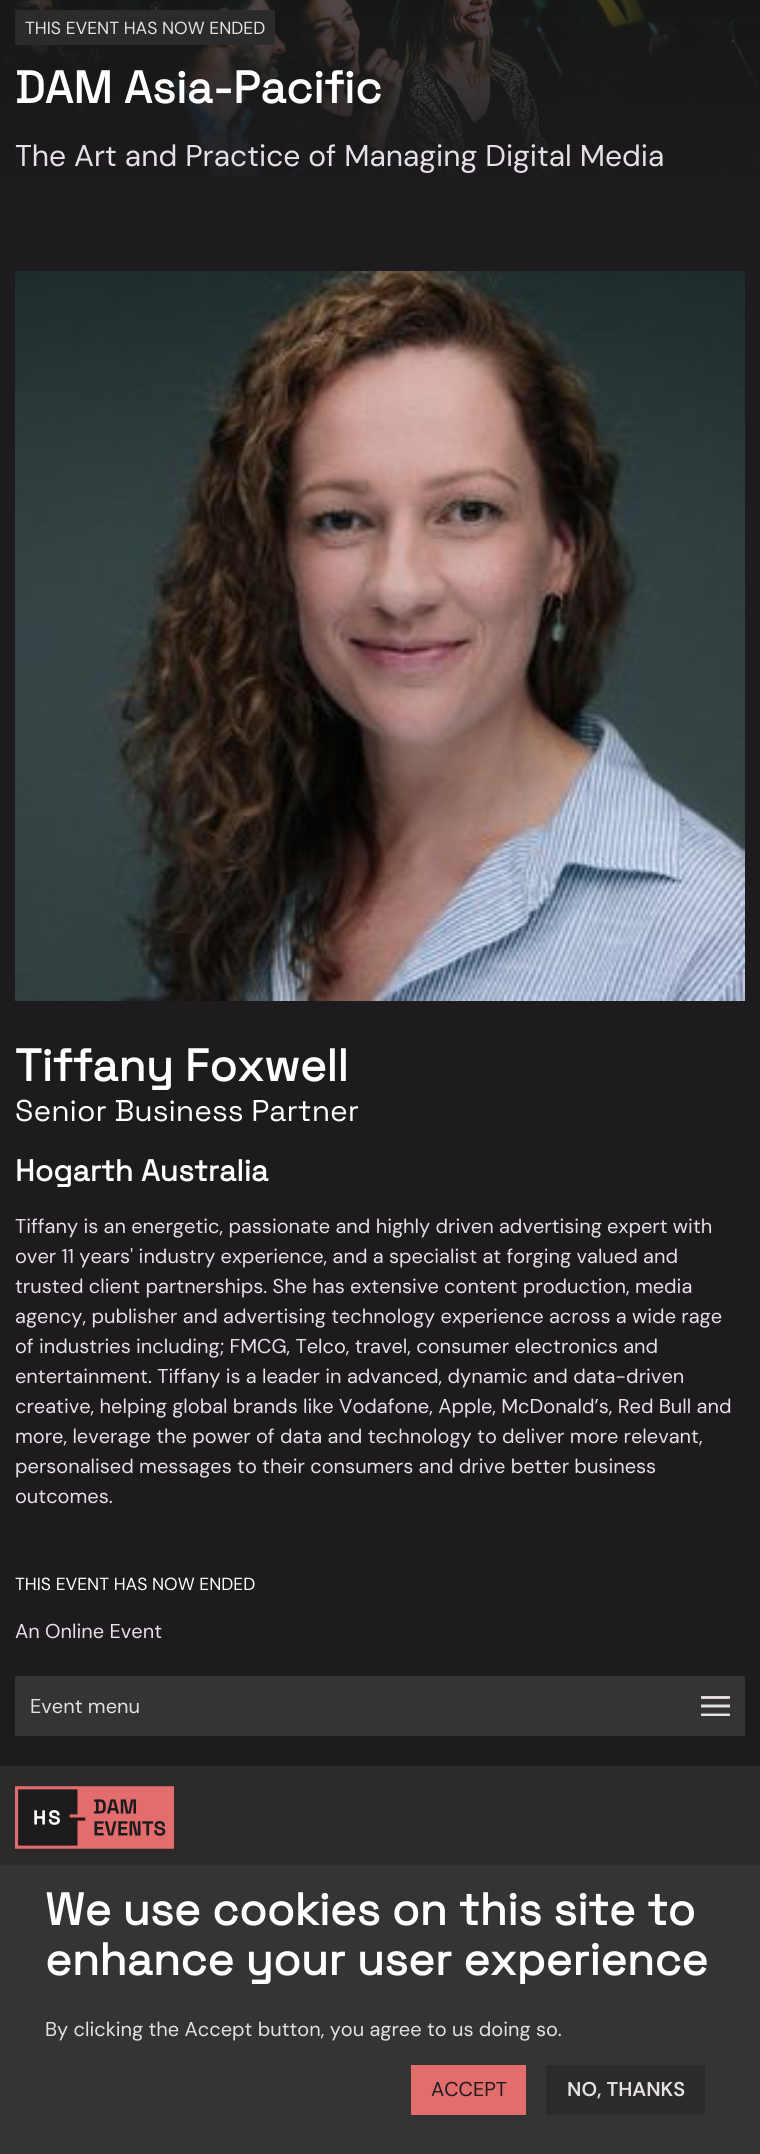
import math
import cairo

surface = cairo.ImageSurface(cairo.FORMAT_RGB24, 760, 2154)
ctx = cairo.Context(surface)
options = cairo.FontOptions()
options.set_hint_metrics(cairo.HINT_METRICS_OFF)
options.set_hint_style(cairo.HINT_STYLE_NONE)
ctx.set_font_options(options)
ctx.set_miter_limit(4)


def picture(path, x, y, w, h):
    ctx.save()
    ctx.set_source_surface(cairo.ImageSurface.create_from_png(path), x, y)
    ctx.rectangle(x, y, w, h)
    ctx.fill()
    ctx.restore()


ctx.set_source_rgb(0.114, 0.106, 0.114)
ctx.paint()
picture("img1.png", 0, 0, 760, 176)
ctx.set_source_rgb(0.173, 0.169, 0.173)
ctx.rectangle(15, 10, 260, 35)
ctx.fill()
ctx.select_font_face("DM Sans")
ctx.set_font_size(17.5)
ctx.set_source_rgb(0.902, 0.878, 0.902)
ctx.move_to(25, 34)
ctx.show_text("THIS EVENT HAS NOW ENDED")
ctx.select_font_face("Space Grotesk", cairo.FONT_SLANT_NORMAL, cairo.FONT_WEIGHT_BOLD)
ctx.set_font_size(45)
ctx.set_source_rgb(1, 1, 1)
ctx.move_to(15, 103)
ctx.show_text("DAM Asia-Pacific")
ctx.select_font_face("DM Sans")
ctx.set_font_size(30)
ctx.set_source_rgb(0.902, 0.878, 0.902)
ctx.move_to(15, 166)
ctx.show_text("The Art and Practice of Managing Digital Media")
picture("img2.png", 15, 271, 730, 730)
ctx.select_font_face("Space Grotesk", cairo.FONT_SLANT_NORMAL, cairo.FONT_WEIGHT_BOLD)
ctx.set_font_size(45)
ctx.set_source_rgb(1, 1, 1)
ctx.move_to(15, 1081)
ctx.show_text("Tiffany Foxwell")
ctx.select_font_face("Space Grotesk Light")
ctx.set_font_size(30)
ctx.move_to(15, 1121)
ctx.show_text("Senior Business Partner")
ctx.select_font_face("Space Grotesk", cairo.FONT_SLANT_NORMAL, cairo.FONT_WEIGHT_BOLD)
ctx.move_to(15, 1181)
ctx.show_text("Hogarth Australia")
ctx.select_font_face("DM Sans")
ctx.set_font_size(20)
ctx.set_source_rgb(0.902, 0.878, 0.902)
ctx.move_to(15, 1233)
ctx.show_text("Tiffany is an energetic, passionate and highly driven advertising expert with")
ctx.move_to(15, 1263)
ctx.show_text("over 11 years' industry experience, and a specialist at forging valued and")
ctx.move_to(15, 1293)
ctx.show_text("trusted client partnerships. She has extensive content production, media")
ctx.move_to(15, 1323)
ctx.show_text("agency, publisher and advertising technology experience across a wide rage")
ctx.move_to(15, 1353)
ctx.show_text("of industries including; FMCG, Telco, travel, consumer electronics and")
ctx.move_to(15, 1383)
ctx.show_text("entertainment. Tiffany is a leader in advanced, dynamic and data-driven")
ctx.move_to(15, 1413)
ctx.show_text("creative, helping global brands like Vodafone, Apple, McDonald’s, Red Bull and")
ctx.move_to(15, 1443)
ctx.show_text("more, leverage the power of data and technology to deliver more relevant,")
ctx.move_to(15, 1473)
ctx.show_text("personalised messages to their consumers and drive better business")
ctx.move_to(15, 1503)
ctx.show_text("outcomes.")
ctx.set_font_size(17.5)
ctx.set_source_rgb(1, 1, 1)
ctx.move_to(15, 1590)
ctx.show_text("THIS EVENT HAS NOW ENDED")
ctx.set_font_size(20)
ctx.set_source_rgb(0.902, 0.878, 0.902)
ctx.move_to(15, 1638)
ctx.show_text("An Online Event")
ctx.set_source_rgb(0.208, 0.204, 0.208)
ctx.rectangle(15, 1676, 730, 60)
ctx.fill()
ctx.set_source_rgb(0.902, 0.878, 0.902)
ctx.move_to(30, 1713)
ctx.show_text("Event menu")
ctx.save()
ctx.rectangle(701, 1696, 29, 20)
ctx.clip()
ctx.new_path()
ctx.move_to(702.5, 1706)
ctx.line_to(728.5, 1706)
ctx.move_to(702.5, 1697.5)
ctx.line_to(728.5, 1697.5)
ctx.move_to(702.5, 1715)
ctx.line_to(728.5, 1715)
ctx.set_line_width(2.9)
ctx.set_line_cap(cairo.LINE_CAP_SQUARE)
ctx.set_line_join(cairo.LINE_JOIN_ROUND)
ctx.stroke()
ctx.restore()
ctx.set_source_rgb(0.173, 0.169, 0.173)
ctx.rectangle(0, 1766, 760, 99)
ctx.fill()
picture("img3.png", 15, 1786, 159, 63)
ctx.set_source_rgb(0.208, 0.204, 0.208)
ctx.rectangle(0, 1865, 760, 289)
ctx.fill()
ctx.select_font_face("Space Grotesk", cairo.FONT_SLANT_NORMAL, cairo.FONT_WEIGHT_BOLD)
ctx.set_font_size(45)
ctx.set_source_rgb(1, 1, 1)
ctx.move_to(45, 1925)
ctx.show_text("We use cookies on this site to")
ctx.move_to(45, 1975)
ctx.show_text("enhance your user experience")
ctx.select_font_face("DM Sans")
ctx.set_font_size(20)
ctx.set_source_rgb(0.902, 0.878, 0.902)
ctx.move_to(45, 2036)
ctx.show_text("By clicking the Accept button, you agree to us doing so.")
ctx.set_source_rgb(0.89, 0.424, 0.424)
ctx.rectangle(411, 2065, 115, 50)
ctx.fill()
ctx.set_source_rgb(0.114, 0.106, 0.114)
ctx.move_to(431, 2096)
ctx.show_text("ACCEPT")
ctx.set_source_rgb(0.173, 0.169, 0.173)
ctx.rectangle(546, 2065, 159, 50)
ctx.fill()
ctx.select_font_face("DM Sans SemiBold")
ctx.set_source_rgb(0.902, 0.878, 0.902)
ctx.move_to(567, 2096)
ctx.show_text("NO, THANKS")
surface.write_to_png("page.png")
